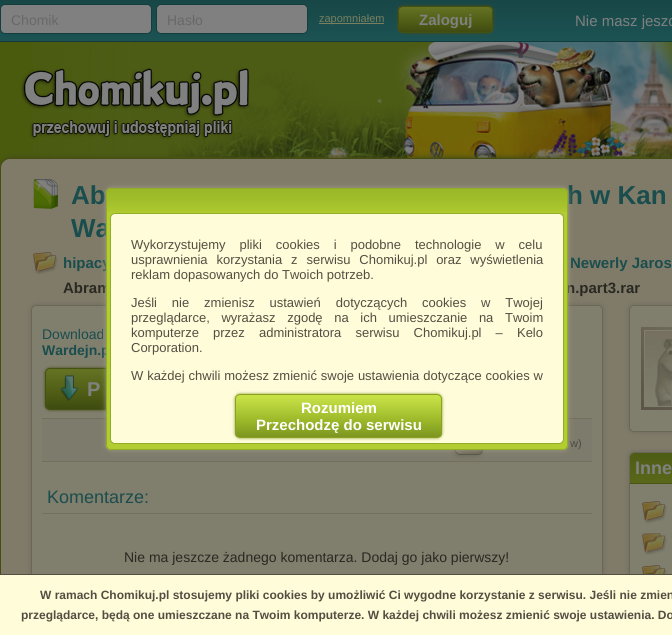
import math
import cairo

surface = cairo.ImageSurface(cairo.FORMAT_RGB24, 672, 635)
ctx = cairo.Context(surface)
options = cairo.FontOptions()
options.set_hint_metrics(cairo.HINT_METRICS_OFF)
options.set_hint_style(cairo.HINT_STYLE_NONE)
ctx.set_font_options(options)
ctx.set_miter_limit(4)


def spaced_text(x, y, s, letter, word):
    ctx.move_to(x, y)
    for ch in s:
        ctx.show_text(ch)
        ctx.rel_move_to(letter + word * (ch == ' '), 0)


def round_rect(x, y, w, h, r):
    ctx.new_sub_path()
    for i, (u, v) in enumerate([(x + w - r, y + h - r), (x + r, y + h - r), (x + r, y + r), (x + w - r, y + r)]):
        ctx.arc(u, v, r, i * math.pi / 2, (i + 1) * math.pi / 2)
    ctx.close_path()


def shadow(x, y, w, h, r, blur, alpha):
    ctx.push_group_with_content(cairo.CONTENT_ALPHA)
    ctx.set_operator(cairo.OPERATOR_SOURCE)
    for i in range(15, -16, -2):
        e = blur * i / 6
        if min(w, h) + 2 * e > 0:
            ctx.set_source_rgba(0, 0, 0, alpha * math.erfc((i - 1) / 8.5) / 2)
            round_rect(x - e, y - e, w + 2 * e, h + 2 * e, max(0, min(r + e + blur * .6, min(w, h) / 2 + e)))
            ctx.fill()
    ctx.mask(ctx.pop_group())


def picture(path, x, y, w, h):
    ctx.save()
    ctx.set_source_surface(cairo.ImageSurface.create_from_png(path), x, y)
    ctx.rectangle(x, y, w, h)
    ctx.fill()
    ctx.restore()


ctx.set_source_rgb(1, 1, 1)
ctx.paint()
gradient = cairo.LinearGradient(336, 0, 336, 41)
gradient.add_color_stop_rgba(0, 0.094, 0.275, 0.275, 1)
gradient.add_color_stop_rgba(1, 0.11, 0.325, 0.325, 1)
ctx.set_source(gradient)
ctx.rectangle(0, 0, 672, 41)
ctx.fill()
ctx.set_source_rgb(0.078, 0.231, 0.231)
ctx.rectangle(0, 41, 672, 1)
ctx.fill()
ctx.set_source_rgb(0.502, 0.502, 0.502)
round_rect(0.5, 4.5, 151, 29, 4.5)
ctx.fill_preserve()
ctx.set_source_rgb(0.082, 0.243, 0.243)
ctx.set_line_width(1)
ctx.stroke()
ctx.select_font_face("Liberation Sans")
ctx.set_font_size(14)
ctx.set_source_rgb(0.408, 0.408, 0.408)
ctx.move_to(11, 25)
ctx.show_text("Chomik")
ctx.set_source_rgb(0.502, 0.502, 0.502)
round_rect(156.5, 4.5, 151, 29, 4.5)
ctx.fill_preserve()
ctx.set_source_rgb(0.082, 0.243, 0.243)
ctx.stroke()
ctx.set_source_rgb(0.408, 0.408, 0.408)
ctx.move_to(167, 25)
ctx.show_text("Hasło")
ctx.set_source_rgb(0.471, 0.502, 0.373)
ctx.rectangle(319, 23, 65, 1)
ctx.fill()
ctx.set_font_size(11)
ctx.move_to(319, 22)
ctx.show_text("zapomniałem")
ctx.set_source_rgb(0.271, 0.302, 0.075)
shadow(398, 6, 95, 27, 5, 1.5, 1)
ctx.save()
round_rect(398, 6, 95, 27, 5)
ctx.clip()
gradient = cairo.LinearGradient(446, 7, 446, 32)
gradient.add_color_stop_rgba(0, 0.388, 0.443, 0.137, 1)
gradient.add_color_stop_rgba(0.06, 0.388, 0.443, 0.137, 1)
gradient.add_color_stop_rgba(0.61, 0.306, 0.361, 0.082, 1)
gradient.add_color_stop_rgba(0.83, 0.271, 0.325, 0.071, 1)
gradient.add_color_stop_rgba(1, 0.247, 0.294, 0.063, 1)
ctx.set_source(gradient)
ctx.rectangle(398, 7, 95, 25)
ctx.fill()
ctx.restore()
round_rect(398.5, 6.5, 94, 26, 4.5)
ctx.set_source_rgb(0.271, 0.318, 0.071)
ctx.stroke()
ctx.select_font_face("Liberation Sans", cairo.FONT_SLANT_NORMAL, cairo.FONT_WEIGHT_BOLD)
ctx.set_font_size(15)
ctx.set_source_rgb(0.502, 0.502, 0.502)
ctx.move_to(419, 25)
ctx.show_text("Zaloguj")
ctx.select_font_face("Liberation Sans")
ctx.move_to(575, 26)
ctx.show_text("Nie masz jeszc")
picture("img1.png", 0, 42, 128, 126)
picture("img2.png", 32, 42, 640, 116)
picture("img3.png", 20, 67, 230, 73)
ctx.set_source_rgb(0.271, 0.302, 0.075)
shadow(-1, 157, 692, 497, 11, 2.5, 1)
ctx.set_source_rgb(0.502, 0.482, 0.412)
round_rect(0.5, 158.5, 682, 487, 9.5)
ctx.fill_preserve()
ctx.set_source_rgb(0.267, 0.302, 0.075)
ctx.stroke()
picture("img4.png", 33, 179, 25, 30)
ctx.select_font_face("Liberation Sans", cairo.FONT_SLANT_NORMAL, cairo.FONT_WEIGHT_BOLD)
ctx.set_font_size(26)
ctx.set_source_rgb(0.102, 0.302, 0.302)
ctx.move_to(71, 204)
ctx.show_text("Ab")
ctx.move_to(567, 204)
ctx.show_text("h w Kan")
ctx.move_to(71, 237)
ctx.show_text("Wa")
picture("img5.png", 33, 252, 25, 23)
ctx.set_font_size(15)
ctx.move_to(63, 268)
ctx.show_text("hipacy")
ctx.move_to(570, 268)
ctx.show_text("Newerly Jaros")
ctx.set_source_rgb(0.161, 0.157, 0.129)
ctx.move_to(63, 293)
ctx.show_text("Abram")
ctx.move_to(566, 293)
ctx.show_text("n.part3.rar")
ctx.set_source_rgb(0.447, 0.431, 0.369)
shadow(30, 304, 574, 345, 6, 2.5, 1)
ctx.set_source_rgb(0.502, 0.494, 0.427)
round_rect(31.5, 305.5, 571, 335, 4.5)
ctx.fill_preserve()
ctx.set_source_rgb(0.42, 0.404, 0.345)
ctx.stroke()
ctx.select_font_face("Liberation Sans")
ctx.set_font_size(14)
ctx.set_source_rgb(0.102, 0.302, 0.302)
ctx.move_to(42, 339)
ctx.show_text("Download")
ctx.select_font_face("Liberation Sans", cairo.FONT_SLANT_NORMAL, cairo.FONT_WEIGHT_BOLD)
ctx.move_to(42, 355)
ctx.show_text("Wardejn.p")
ctx.set_source_rgb(0.271, 0.302, 0.075)
shadow(45, 368, 130, 42, 5, 1.5, 1)
ctx.save()
round_rect(45, 368, 130, 42, 5)
ctx.clip()
gradient = cairo.LinearGradient(110, 369, 110, 409)
gradient.add_color_stop_rgba(0, 0.388, 0.443, 0.137, 1)
gradient.add_color_stop_rgba(0.06, 0.388, 0.443, 0.137, 1)
gradient.add_color_stop_rgba(0.61, 0.306, 0.361, 0.082, 1)
gradient.add_color_stop_rgba(0.83, 0.271, 0.325, 0.071, 1)
gradient.add_color_stop_rgba(1, 0.247, 0.294, 0.063, 1)
ctx.set_source(gradient)
ctx.rectangle(45, 369, 61, 40)
ctx.fill()
ctx.restore()
round_rect(45.5, 368.5, 129, 41, 4.5)
ctx.set_source_rgb(0.271, 0.318, 0.071)
ctx.stroke()
picture("img6.png", 60, 375, 19, 26)
ctx.set_font_size(20)
ctx.set_source_rgb(0.502, 0.502, 0.502)
ctx.move_to(87, 396)
ctx.show_text("P")
ctx.set_source_rgb(0.49, 0.482, 0.42)
ctx.rectangle(42, 419, 550, 42)
ctx.fill()
ctx.set_source_rgb(0.451, 0.435, 0.369)
ctx.rectangle(42, 418, 550, 1)
ctx.fill()
ctx.rectangle(42, 461, 550, 1)
ctx.fill()
ctx.set_source_rgb(0.424, 0.416, 0.361)
shadow(454, 430, 28, 26, 5, 2.5, 1)
ctx.set_source_rgb(0.498, 0.49, 0.435)
round_rect(455, 429, 28, 26, 5)
ctx.fill()
picture("img7.png", 457, 450, 25, 4)
round_rect(455.5, 429.5, 27, 25, 4.5)
ctx.set_source_rgb(0.337, 0.333, 0.286)
ctx.stroke()
picture("img8.png", 468, 450, 4, 1)
ctx.select_font_face("Liberation Sans")
ctx.set_font_size(11)
ctx.set_source_rgb(0.29, 0.286, 0.247)
ctx.move_to(570, 447)
ctx.show_text("w)")
ctx.set_source_rgb(0.451, 0.435, 0.369)
ctx.rectangle(42, 513, 550, 1)
ctx.fill()
ctx.set_font_size(18)
ctx.set_source_rgb(0.102, 0.302, 0.302)
ctx.move_to(47, 503)
ctx.show_text("Komentarze:")
ctx.set_font_size(14)
ctx.set_source_rgb(0.161, 0.157, 0.129)
ctx.move_to(124, 562)
ctx.show_text("Nie ma jeszcze żadnego komentarza. Dodaj go jako pierwszy!")
ctx.set_source_rgb(0.447, 0.431, 0.369)
shadow(628, 304, 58, 129, 6, 2.5, 1)
ctx.set_source_rgb(0.502, 0.494, 0.427)
round_rect(629.5, 305.5, 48, 126, 4.5)
ctx.fill_preserve()
ctx.set_source_rgb(0.42, 0.404, 0.345)
ctx.stroke()
picture("img10.png", 645, 331, 27, 75)
picture("img9.png", 641, 327, 31, 83)
ctx.set_source_rgb(0.447, 0.431, 0.369)
shadow(628, 451, 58, 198, 6, 2.5, 1)
ctx.set_source_rgb(0.502, 0.494, 0.427)
round_rect(629.5, 452.5, 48, 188, 4.5)
ctx.fill_preserve()
ctx.set_source_rgb(0.42, 0.404, 0.345)
ctx.stroke()
gradient = cairo.LinearGradient(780, 453, 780, 483)
gradient.add_color_stop_rgba(0, 0.302, 0.361, 0.078, 1)
gradient.add_color_stop_rgba(1, 0.349, 0.404, 0.098, 1)
ctx.set_source(gradient)
ctx.new_path()
ctx.move_to(634, 453)
ctx.line_to(672, 453)
ctx.curve_to(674, 453, 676, 455, 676, 457)
ctx.line_to(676, 483)
ctx.line_to(630, 483)
ctx.line_to(630, 457)
ctx.curve_to(630, 455, 632, 453, 634, 453)
ctx.close_path()
ctx.fill()
ctx.set_source_rgb(0.286, 0.337, 0.075)
ctx.new_path()
ctx.move_to(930, 484)
ctx.line_to(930, 466)
ctx.curve_to(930, 461, 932, 453, 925, 453)
ctx.curve_to(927, 453, 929, 455, 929, 457)
ctx.line_to(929, 483)
ctx.line_to(630, 483)
ctx.line_to(630, 484)
ctx.close_path()
ctx.fill()
ctx.select_font_face("Liberation Sans", cairo.FONT_SLANT_NORMAL, cairo.FONT_WEIGHT_BOLD)
ctx.set_font_size(18)
ctx.set_source_rgb(0.502, 0.502, 0.502)
ctx.move_to(635, 474)
ctx.show_text("Inne")
picture("img11.png", 642, 501, 25, 23)
picture("img12.png", 642, 533, 25, 22)
picture("img13.png", 642, 565, 25, 9)
ctx.set_source_rgb(0.639, 0.616, 0.522)
shadow(106, 188, 462, 262, 5, 2.5, 1)
ctx.set_source_rgb(0.698, 0.804, 0.192)
round_rect(106, 188, 462, 262, 5)
ctx.fill()
picture("img14.png", 106, 189, 462, 23)
round_rect(106.5, 188.5, 461, 261, 4.5)
ctx.set_source_rgb(0.569, 0.675, 0.149)
ctx.stroke()
ctx.set_source_rgb(1, 0.988, 0.855)
round_rect(110.5, 213.5, 453, 230, 4.5)
ctx.fill_preserve()
ctx.set_source_rgb(0.569, 0.675, 0.149)
ctx.stroke()
ctx.select_font_face("Liberation Sans")
ctx.set_font_size(13)
ctx.set_source_rgb(0.322, 0.31, 0.259)
spaced_text(131, 249, "Wykorzystujemy pliki cookies i podobne technologie w celu", 0, 10.25)
spaced_text(131, 264, "usprawnienia korzystania z serwisu Chomikuj.pl oraz wyświetlenia", 0, 5.25)
ctx.move_to(131, 279)
ctx.show_text("reklam dopasowanych do Twoich potrzeb.")
spaced_text(131, 307, "Jeśli nie zmienisz ustawień dotyczących cookies w Twojej", 0, 11.25)
spaced_text(131, 322, "przeglądarce, wyrażasz zgodę na ich umieszczanie na Twoim", 0, 8)
spaced_text(131, 337, "komputerze przez administratora serwisu Chomikuj.pl – Kelo", 0, 10.5)
ctx.move_to(131, 352)
ctx.show_text("Corporation.")
spaced_text(131, 380, "W każdej chwili możesz zmienić swoje ustawienia dotyczące cookies w", 0, 0.25)
ctx.set_source_rgb(0.537, 0.6, 0.149)
shadow(235, 394, 207, 44, 5, 1.5, 1)
ctx.save()
round_rect(235, 394, 207, 44, 5)
ctx.clip()
gradient = cairo.LinearGradient(339, 395, 339, 437)
gradient.add_color_stop_rgba(0, 0.776, 0.882, 0.275, 1)
gradient.add_color_stop_rgba(0.06, 0.776, 0.882, 0.275, 1)
gradient.add_color_stop_rgba(0.61, 0.612, 0.722, 0.161, 1)
gradient.add_color_stop_rgba(0.83, 0.541, 0.647, 0.141, 1)
gradient.add_color_stop_rgba(1, 0.49, 0.584, 0.125, 1)
ctx.set_source(gradient)
ctx.rectangle(235, 395, 207, 42)
ctx.fill()
ctx.restore()
round_rect(235.5, 394.5, 206, 43, 4.5)
ctx.set_source_rgb(0.537, 0.635, 0.141)
ctx.stroke()
ctx.select_font_face("Liberation Sans", cairo.FONT_SLANT_NORMAL, cairo.FONT_WEIGHT_BOLD)
ctx.set_font_size(15)
ctx.set_source_rgb(1, 1, 1)
ctx.move_to(301, 413)
ctx.show_text("Rozumiem")
ctx.move_to(256, 430)
ctx.show_text("Przechodzę do serwisu")
ctx.set_source_rgb(1, 0.988, 0.855)
ctx.rectangle(0, 575, 672, 60)
ctx.fill()
ctx.set_source_rgb(0.322, 0.31, 0.259)
ctx.rectangle(0, 574, 672, 1)
ctx.fill()
ctx.set_font_size(12)
ctx.move_to(40, 599)
ctx.show_text("W ramach Chomikuj.pl stosujemy pliki cookies by umożliwić Ci wygodne korzystanie z serwisu. Jeśli nie zmien")
ctx.move_to(21, 619)
ctx.show_text("przeglądarce, będą one umieszczane na Twoim komputerze. W każdej chwili możesz zmienić swoje ustawienia. Do")
surface.write_to_png("page.png")
